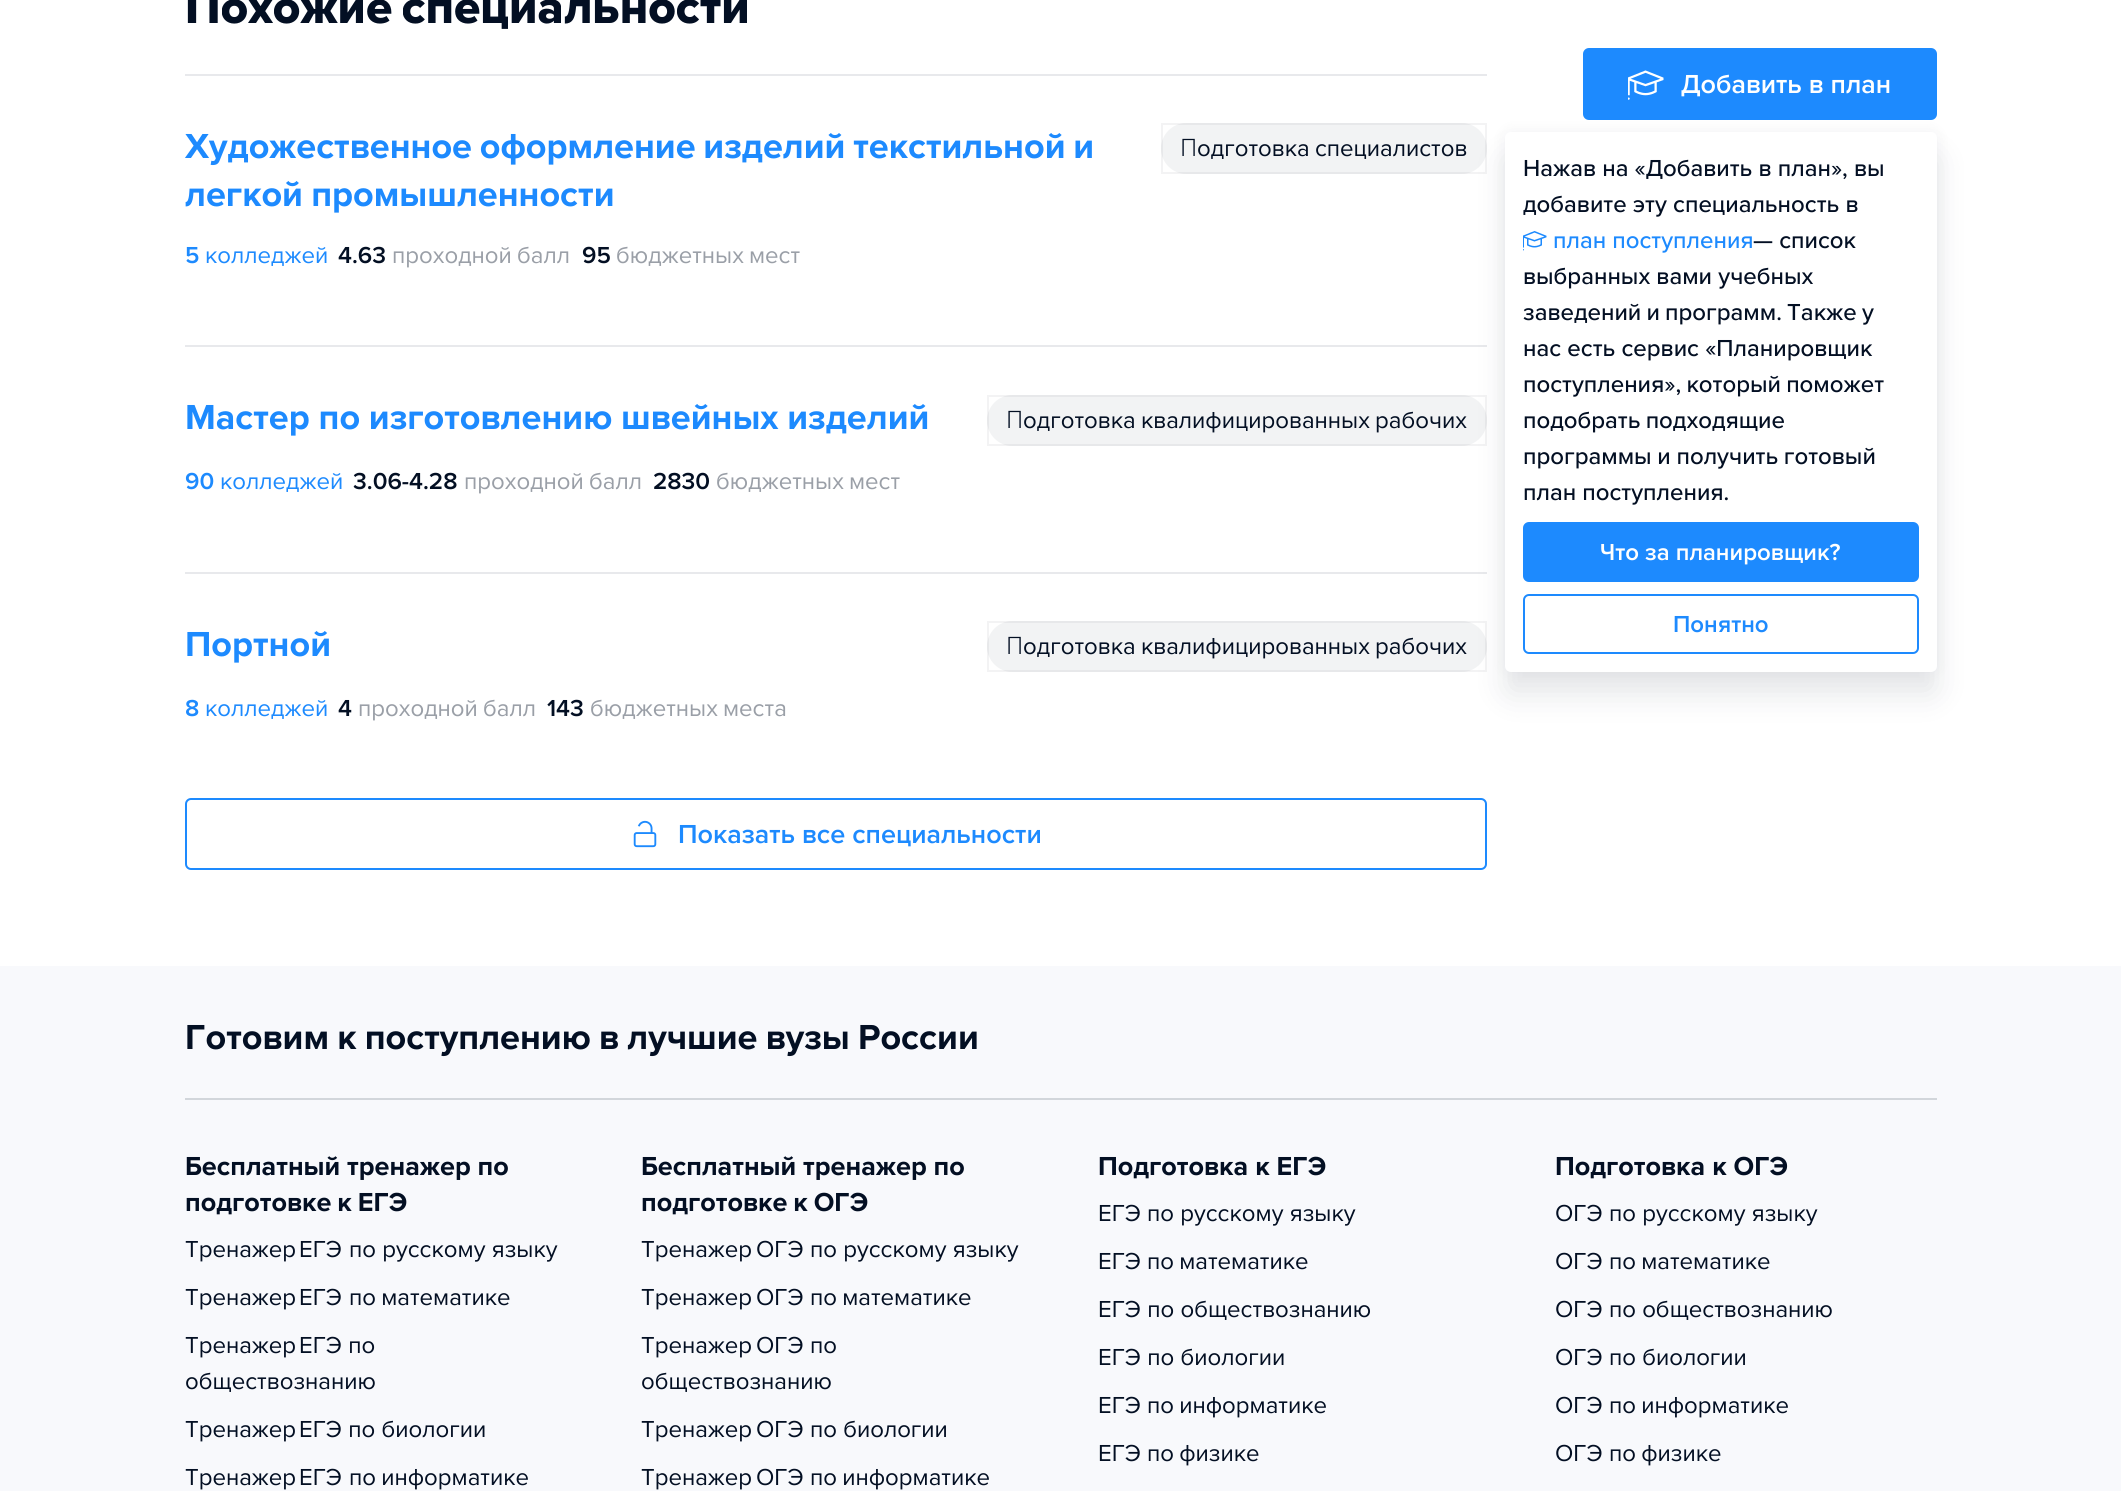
import math
import cairo

surface = cairo.ImageSurface(cairo.FORMAT_RGB24, 2121, 1491)
ctx = cairo.Context(surface)
options = cairo.FontOptions()
options.set_hint_metrics(cairo.HINT_METRICS_OFF)
options.set_hint_style(cairo.HINT_STYLE_NONE)
ctx.set_font_options(options)
ctx.set_miter_limit(4)


def spaced_text(x, y, s, letter, word):
    ctx.move_to(x, y)
    for ch in s:
        ctx.show_text(ch)
        ctx.rel_move_to(letter + word * (ch == ' '), 0)


def round_rect(x, y, w, h, r):
    ctx.new_sub_path()
    for i, (u, v) in enumerate([(x + w - r, y + h - r), (x + r, y + h - r), (x + r, y + r), (x + w - r, y + r)]):
        ctx.arc(u, v, r, i * math.pi / 2, (i + 1) * math.pi / 2)
    ctx.close_path()


def shadow(x, y, w, h, r, blur, alpha):
    ctx.push_group_with_content(cairo.CONTENT_ALPHA)
    ctx.set_operator(cairo.OPERATOR_SOURCE)
    for i in range(15, -16, -2):
        e = blur * i / 6
        if min(w, h) + 2 * e > 0:
            ctx.set_source_rgba(0, 0, 0, alpha * math.erfc((i - 1) / 8.5) / 2)
            round_rect(x - e, y - e, w + 2 * e, h + 2 * e, max(0, min(r + e + blur * .6, min(w, h) / 2 + e)))
            ctx.fill()
    ctx.mask(ctx.pop_group())


def picture(path, x, y, w, h):
    ctx.save()
    ctx.set_source_surface(cairo.ImageSurface.create_from_png(path), x, y)
    ctx.rectangle(x, y, w, h)
    ctx.fill()
    ctx.restore()


ctx.set_source_rgb(1, 1, 1)
ctx.paint()
ctx.select_font_face("Proxima Nova ExtraBold")
ctx.set_font_size(48)
ctx.set_source_rgb(0.012, 0.059, 0.137)
spaced_text(185, 23, "Похожие специальности", 0, -3)
ctx.set_source_rgb(0.91, 0.914, 0.922)
ctx.rectangle(185, 74, 1302, 2)
ctx.fill()
ctx.select_font_face("Proxima Nova", cairo.FONT_SLANT_NORMAL, cairo.FONT_WEIGHT_BOLD)
ctx.set_font_size(36)
ctx.set_source_rgb(0.114, 0.541, 0.996)
spaced_text(185, 158, "Художественное оформление изделий текстильной и", 0, -1.5)
spaced_text(185, 206, "легкой промышленности", 0, -1)
ctx.set_source_rgb(0.949, 0.953, 0.957)
round_rect(1161, 123, 326, 51, 25.5)
ctx.fill()
ctx.rectangle(1162, 124, 324, 49)
ctx.set_source_rgba(0.012, 0.059, 0.137, 0.05)
ctx.stroke()
ctx.select_font_face("Noto Sans Light")
ctx.set_font_size(24)
ctx.set_source_rgb(0.012, 0.059, 0.137)
ctx.move_to(1180, 156)
ctx.show_text("П")
ctx.select_font_face("Proxima Nova")
spaced_text(1197, 156, "одготовка специалистов", 0, -1)
ctx.select_font_face("Proxima Nova SemiBold")
ctx.set_source_rgb(0.114, 0.541, 0.996)
ctx.move_to(185, 263)
ctx.show_text("5")
ctx.select_font_face("Proxima Nova")
ctx.move_to(205, 263)
ctx.show_text("колледжей")
ctx.select_font_face("Proxima Nova SemiBold")
ctx.set_source_rgb(0.012, 0.059, 0.137)
ctx.move_to(338, 263)
ctx.show_text("4.63")
ctx.select_font_face("Proxima Nova")
ctx.set_source_rgb(0.604, 0.624, 0.655)
spaced_text(392, 263, "проходной балл", 0, -1)
ctx.select_font_face("Proxima Nova SemiBold")
ctx.set_source_rgb(0.012, 0.059, 0.137)
ctx.move_to(582, 263)
ctx.show_text("95")
ctx.select_font_face("Proxima Nova")
ctx.set_source_rgb(0.604, 0.624, 0.655)
spaced_text(616, 263, "бюджетных мест", 0, -1)
ctx.set_source_rgb(0.91, 0.914, 0.922)
ctx.rectangle(185, 345, 1302, 2)
ctx.fill()
ctx.select_font_face("Proxima Nova", cairo.FONT_SLANT_NORMAL, cairo.FONT_WEIGHT_BOLD)
ctx.set_font_size(36)
ctx.set_source_rgb(0.114, 0.541, 0.996)
spaced_text(185, 429, "Мастер по изготовлению швейных изделий", 0, -0.5)
ctx.set_source_rgb(0.949, 0.953, 0.957)
round_rect(987, 395, 500, 51, 25.5)
ctx.fill()
ctx.rectangle(988, 396, 498, 49)
ctx.set_source_rgba(0.012, 0.059, 0.137, 0.05)
ctx.stroke()
ctx.select_font_face("Noto Sans Light")
ctx.set_font_size(24)
ctx.set_source_rgb(0.012, 0.059, 0.137)
ctx.move_to(1006, 428)
ctx.show_text("П")
ctx.select_font_face("Proxima Nova")
spaced_text(1023, 428, "одготовка квалифицированных рабочих", 0, -1)
ctx.select_font_face("Proxima Nova SemiBold")
ctx.set_source_rgb(0.114, 0.541, 0.996)
ctx.move_to(185, 489)
ctx.show_text("90")
ctx.select_font_face("Proxima Nova")
ctx.move_to(220, 489)
ctx.show_text("колледжей")
ctx.select_font_face("Proxima Nova SemiBold")
ctx.set_source_rgb(0.012, 0.059, 0.137)
ctx.move_to(353, 489)
ctx.show_text("3.06-4.28")
ctx.select_font_face("Proxima Nova")
ctx.set_source_rgb(0.604, 0.624, 0.655)
spaced_text(464, 489, "проходной балл", 0, -1)
ctx.select_font_face("Proxima Nova SemiBold")
ctx.set_source_rgb(0.012, 0.059, 0.137)
ctx.move_to(653, 489)
ctx.show_text("2830")
ctx.select_font_face("Proxima Nova")
ctx.set_source_rgb(0.604, 0.624, 0.655)
spaced_text(716, 489, "бюджетных мест", 0, -1)
ctx.set_source_rgb(0.91, 0.914, 0.922)
ctx.rectangle(185, 572, 1302, 2)
ctx.fill()
ctx.select_font_face("Proxima Nova", cairo.FONT_SLANT_NORMAL, cairo.FONT_WEIGHT_BOLD)
ctx.set_font_size(36)
ctx.set_source_rgb(0.114, 0.541, 0.996)
ctx.move_to(185, 656)
ctx.show_text("Портной")
ctx.set_source_rgb(0.949, 0.953, 0.957)
round_rect(987, 621, 500, 51, 25.5)
ctx.fill()
ctx.rectangle(988, 622, 498, 49)
ctx.set_source_rgba(0.012, 0.059, 0.137, 0.05)
ctx.stroke()
ctx.select_font_face("Noto Sans Light")
ctx.set_font_size(24)
ctx.set_source_rgb(0.012, 0.059, 0.137)
ctx.move_to(1006, 654)
ctx.show_text("П")
ctx.select_font_face("Proxima Nova")
spaced_text(1023, 654, "одготовка квалифицированных рабочих", 0, -1)
ctx.select_font_face("Proxima Nova SemiBold")
ctx.set_source_rgb(0.114, 0.541, 0.996)
ctx.move_to(185, 716)
ctx.show_text("8")
ctx.select_font_face("Proxima Nova")
ctx.move_to(205, 716)
ctx.show_text("колледжей")
ctx.select_font_face("Proxima Nova SemiBold")
ctx.set_source_rgb(0.012, 0.059, 0.137)
ctx.move_to(338, 716)
ctx.show_text("4")
ctx.select_font_face("Proxima Nova")
ctx.set_source_rgb(0.604, 0.624, 0.655)
spaced_text(358, 716, "проходной балл", 0, -1)
ctx.select_font_face("Proxima Nova SemiBold")
ctx.set_source_rgb(0.012, 0.059, 0.137)
ctx.move_to(547, 716)
ctx.show_text("143")
ctx.select_font_face("Proxima Nova")
ctx.set_source_rgb(0.604, 0.624, 0.655)
spaced_text(590, 716, "бюджетных места", 0, -1)
round_rect(186, 799, 1300, 70, 5)
ctx.set_source_rgb(0.114, 0.541, 0.996)
ctx.stroke()
picture("img1.png", 633, 820, 24, 28)
ctx.select_font_face("Proxima Nova SemiBold")
ctx.set_font_size(27)
ctx.move_to(678, 843)
ctx.show_text("Показать все специальности")
round_rect(1583, 48, 354, 72, 6)
ctx.fill()
picture("img2.png", 1628, 70, 36, 30)
ctx.set_source_rgb(1, 1, 1)
ctx.move_to(1681, 93)
ctx.show_text("Добавить в план")
ctx.set_source_rgb(0.012, 0.059, 0.137)
shadow(1505, 132, 432, 540, 6, 7.5, 0.05)
shadow(1505, 155, 432, 540, 6, 15, 0.1)
ctx.set_source_rgb(1, 1, 1)
round_rect(1505, 132, 432, 540, 6)
ctx.fill()
ctx.select_font_face("Proxima Nova Medium")
ctx.set_font_size(24)
ctx.set_source_rgb(0.012, 0.059, 0.137)
ctx.move_to(1523, 176)
ctx.show_text("Нажав на «Добавить в план», вы")
ctx.move_to(1523, 212)
ctx.show_text("добавите эту специальность в")
picture("img3.png", 1523, 231, 24, 20)
ctx.set_source_rgb(0.114, 0.541, 0.996)
ctx.move_to(1553, 248)
ctx.show_text("план поступления")
ctx.set_source_rgb(0.012, 0.059, 0.137)
ctx.move_to(1753, 248)
ctx.show_text("— список")
ctx.move_to(1523, 284)
ctx.show_text("выбранных вами учебных")
spaced_text(1523, 320, "заведений и программ. Также у", 0, -1)
ctx.move_to(1523, 356)
ctx.show_text("нас есть сервис «Планировщик")
spaced_text(1523, 392, "поступления», который поможет", 0, -1)
spaced_text(1523, 428, "подобрать подходящие", 0, -1)
spaced_text(1523, 464, "программы и получить готовый", 0, -0.5)
ctx.move_to(1523, 500)
ctx.show_text("план поступления.")
ctx.set_source_rgb(0.114, 0.541, 0.996)
round_rect(1523, 522, 396, 60, 6)
ctx.fill()
ctx.select_font_face("Proxima Nova SemiBold")
ctx.set_source_rgb(1, 1, 1)
ctx.move_to(1600, 560)
ctx.show_text("Что за планировщик?")
round_rect(1524, 595, 394, 58, 5)
ctx.set_source_rgb(0.114, 0.541, 0.996)
ctx.stroke()
ctx.move_to(1673, 632)
ctx.show_text("Понятно")
ctx.set_source_rgb(0.969, 0.976, 0.988)
ctx.rectangle(0, 966, 2121, 525)
ctx.fill()
ctx.set_source_rgb(0.824, 0.839, 0.859)
ctx.rectangle(185, 1098, 1752, 2)
ctx.fill()
ctx.select_font_face("Proxima Nova", cairo.FONT_SLANT_NORMAL, cairo.FONT_WEIGHT_BOLD)
ctx.set_font_size(36)
ctx.set_source_rgb(0.012, 0.059, 0.137)
spaced_text(185, 1049, "Готовим к поступлению в лучшие вузы России", 0, -1)
ctx.set_font_size(27)
ctx.move_to(185, 1175)
ctx.show_text("Бесплатный тренажер по")
spaced_text(185, 1211, "подготовке к ЕГЭ", 0, -1)
ctx.select_font_face("Proxima Nova")
ctx.set_font_size(24)
ctx.move_to(185, 1257)
ctx.show_text("Тренажер")
ctx.move_to(299, 1257)
ctx.show_text("ЕГЭ")
ctx.move_to(349, 1257)
ctx.show_text("по русскому языку")
ctx.move_to(185, 1305)
ctx.show_text("Тренажер")
ctx.move_to(299, 1305)
ctx.show_text("ЕГЭ")
spaced_text(349, 1305, "по математике", 0, -1)
ctx.move_to(185, 1353)
ctx.show_text("Тренажер")
ctx.move_to(299, 1353)
ctx.show_text("ЕГЭ по")
ctx.move_to(185, 1389)
ctx.show_text("обществознанию")
ctx.move_to(185, 1437)
ctx.show_text("Тренажер")
ctx.move_to(299, 1437)
ctx.show_text("ЕГЭ по биологии")
ctx.move_to(185, 1485)
ctx.show_text("Тренажер")
ctx.move_to(299, 1485)
ctx.show_text("ЕГЭ")
spaced_text(349, 1485, "по информатике", 0, -1)
ctx.select_font_face("Proxima Nova", cairo.FONT_SLANT_NORMAL, cairo.FONT_WEIGHT_BOLD)
ctx.set_font_size(27)
ctx.move_to(641, 1175)
ctx.show_text("Бесплатный тренажер по")
spaced_text(641, 1211, "подготовке к ОГЭ", 0, -1)
ctx.select_font_face("Proxima Nova")
ctx.set_font_size(24)
ctx.move_to(641, 1257)
ctx.show_text("Тренажер")
ctx.move_to(756, 1257)
ctx.show_text("ОГЭ")
ctx.move_to(810, 1257)
ctx.show_text("по русскому языку")
ctx.move_to(641, 1305)
ctx.show_text("Тренажер")
ctx.move_to(756, 1305)
ctx.show_text("ОГЭ")
spaced_text(810, 1305, "по математике", 0, -1)
ctx.move_to(641, 1353)
ctx.show_text("Тренажер")
ctx.move_to(756, 1353)
ctx.show_text("ОГЭ по")
ctx.move_to(641, 1389)
ctx.show_text("обществознанию")
ctx.move_to(641, 1437)
ctx.show_text("Тренажер")
ctx.move_to(756, 1437)
ctx.show_text("ОГЭ по биологии")
ctx.move_to(641, 1485)
ctx.show_text("Тренажер")
ctx.move_to(756, 1485)
ctx.show_text("ОГЭ")
spaced_text(810, 1485, "по информатике", 0, -1)
ctx.select_font_face("Proxima Nova", cairo.FONT_SLANT_NORMAL, cairo.FONT_WEIGHT_BOLD)
ctx.set_font_size(27)
ctx.move_to(1098, 1175)
ctx.show_text("Подготовка к ЕГЭ")
ctx.select_font_face("Proxima Nova")
ctx.set_font_size(24)
ctx.move_to(1098, 1221)
ctx.show_text("ЕГЭ")
ctx.move_to(1147, 1221)
ctx.show_text("по русскому языку")
ctx.move_to(1098, 1269)
ctx.show_text("ЕГЭ")
spaced_text(1147, 1269, "по математике", 0, -1)
ctx.move_to(1098, 1317)
ctx.show_text("ЕГЭ по обществознанию")
ctx.move_to(1098, 1365)
ctx.show_text("ЕГЭ по биологии")
ctx.move_to(1098, 1413)
ctx.show_text("ЕГЭ")
spaced_text(1147, 1413, "по информатике", 0, -1)
ctx.move_to(1098, 1461)
ctx.show_text("ЕГЭ")
spaced_text(1147, 1461, "по физике", 0, -1)
ctx.select_font_face("Proxima Nova", cairo.FONT_SLANT_NORMAL, cairo.FONT_WEIGHT_BOLD)
ctx.set_font_size(27)
ctx.move_to(1555, 1175)
ctx.show_text("Подготовка к ОГЭ")
ctx.select_font_face("Proxima Nova")
ctx.set_font_size(24)
ctx.move_to(1555, 1221)
ctx.show_text("ОГЭ")
ctx.move_to(1609, 1221)
ctx.show_text("по русскому языку")
ctx.move_to(1555, 1269)
ctx.show_text("ОГЭ")
spaced_text(1609, 1269, "по математике", 0, -1)
ctx.move_to(1555, 1317)
ctx.show_text("ОГЭ по обществознанию")
ctx.move_to(1555, 1365)
ctx.show_text("ОГЭ по биологии")
ctx.move_to(1555, 1413)
ctx.show_text("ОГЭ")
spaced_text(1609, 1413, "по информатике", 0, -1)
ctx.move_to(1555, 1461)
ctx.show_text("ОГЭ")
spaced_text(1609, 1461, "по физике", 0, -1)
surface.write_to_png("page.png")
